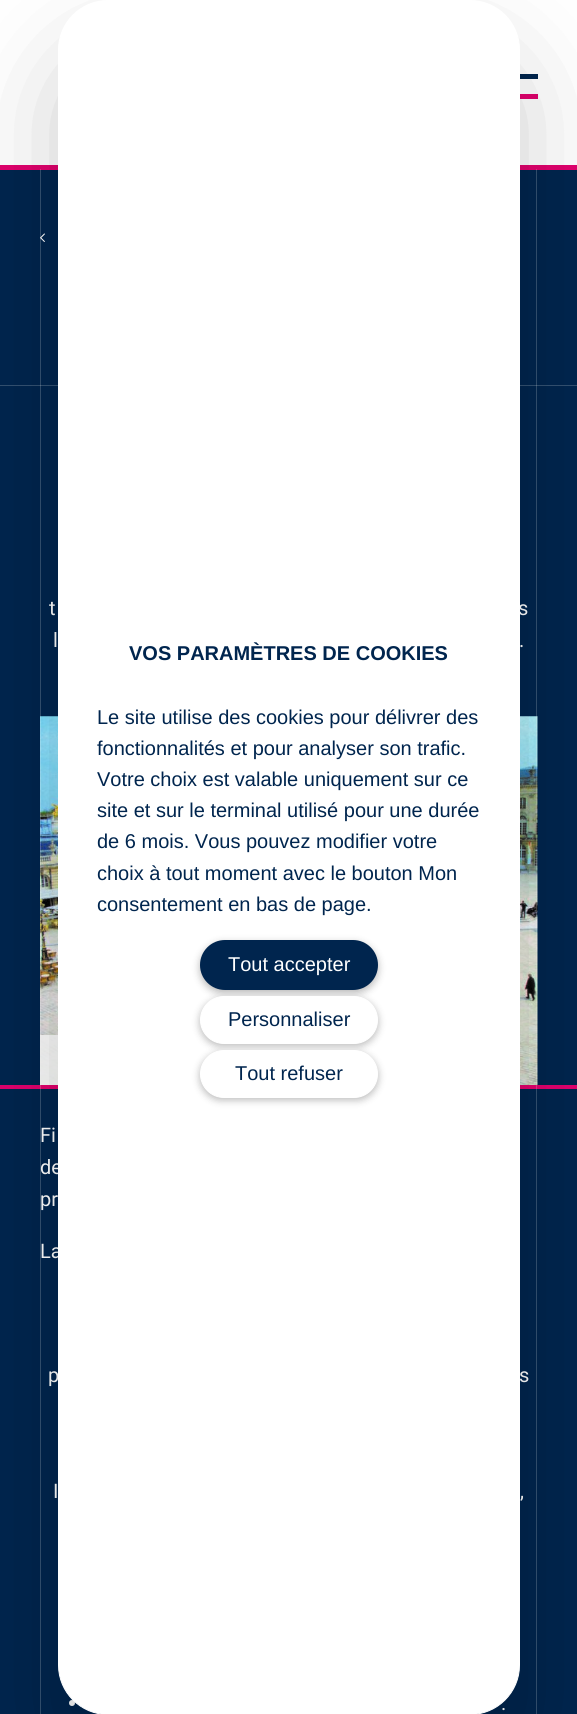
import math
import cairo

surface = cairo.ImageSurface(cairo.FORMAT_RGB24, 577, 1714)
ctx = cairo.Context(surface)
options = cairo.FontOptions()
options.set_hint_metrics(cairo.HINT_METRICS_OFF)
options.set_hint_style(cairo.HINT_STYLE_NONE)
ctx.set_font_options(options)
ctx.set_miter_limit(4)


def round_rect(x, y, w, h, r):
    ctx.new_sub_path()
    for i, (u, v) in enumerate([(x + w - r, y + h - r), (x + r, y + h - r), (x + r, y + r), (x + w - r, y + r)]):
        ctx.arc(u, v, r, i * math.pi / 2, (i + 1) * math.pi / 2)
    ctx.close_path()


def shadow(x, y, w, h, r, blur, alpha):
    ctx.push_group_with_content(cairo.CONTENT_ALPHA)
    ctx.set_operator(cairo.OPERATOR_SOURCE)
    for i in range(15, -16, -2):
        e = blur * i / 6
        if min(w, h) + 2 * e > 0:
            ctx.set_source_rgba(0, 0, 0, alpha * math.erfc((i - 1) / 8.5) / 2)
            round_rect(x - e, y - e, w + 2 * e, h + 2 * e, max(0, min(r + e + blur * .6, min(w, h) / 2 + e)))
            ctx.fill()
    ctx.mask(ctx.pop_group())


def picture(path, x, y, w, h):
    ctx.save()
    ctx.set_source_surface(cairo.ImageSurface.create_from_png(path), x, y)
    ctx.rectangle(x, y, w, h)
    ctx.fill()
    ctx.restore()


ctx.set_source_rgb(1, 1, 1)
ctx.paint()
ctx.set_source_rgb(0.882, 0.004, 0.427)
ctx.rectangle(0, 165, 577, 5)
ctx.fill()
ctx.set_source_rgb(0, 0.145, 0.306)
ctx.rectangle(0, 170, 577, 1544)
ctx.fill()
picture("img1.png", 40, 233, 5, 9)
ctx.set_source_rgb(0.2, 0.318, 0.443)
ctx.rectangle(0, 385, 577, 1)
ctx.fill()
picture("img2.png", 40, 716, 498, 369)
ctx.set_source_rgba(1, 1, 1, 0.85)
ctx.rectangle(40, 1035, 18, 50)
ctx.fill()
ctx.set_source_rgb(0.882, 0.004, 0.427)
ctx.rectangle(0, 1085, 577, 4)
ctx.fill()
ctx.set_source_rgba(1, 1, 1, 0.2)
ctx.rectangle(40, 169, 1, 1545)
ctx.fill()
ctx.set_source_rgb(0, 0.145, 0.306)
ctx.rectangle(520, 74, 18, 5)
ctx.fill()
ctx.set_source_rgb(0.882, 0.004, 0.427)
ctx.rectangle(520, 94, 18, 5)
ctx.fill()
ctx.select_font_face("Roboto")
ctx.set_font_size(20)
ctx.set_source_rgb(1, 1, 1)
ctx.move_to(49, 615)
ctx.show_text("t")
ctx.move_to(518, 615)
ctx.show_text("s")
ctx.move_to(53, 647)
ctx.show_text("l")
ctx.move_to(519, 647)
ctx.show_text(".")
ctx.move_to(40, 1142)
ctx.show_text("Fi")
ctx.move_to(40, 1174)
ctx.show_text("de")
ctx.move_to(40, 1206)
ctx.show_text("pr")
ctx.move_to(40, 1258)
ctx.show_text("La")
ctx.move_to(48, 1382)
ctx.show_text("p")
ctx.move_to(519, 1382)
ctx.show_text("s")
ctx.move_to(53, 1498)
ctx.show_text("I")
ctx.move_to(520, 1498)
ctx.show_text(",")
ctx.new_path()
ctx.arc(72, 1703, 3, 0, 2 * math.pi)
ctx.fill()
ctx.move_to(501, 1710)
ctx.show_text(".")
ctx.set_source_rgba(1, 1, 1, 0.2)
ctx.rectangle(536, 169, 1, 1545)
ctx.fill()
ctx.set_source_rgb(0, 0, 0)
shadow(58, 53, 462, 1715, 50, 53, 0.2)
ctx.set_source_rgb(1, 1, 1)
round_rect(58.5, 0.5, 461, 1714, 49.5)
ctx.fill_preserve()
ctx.set_line_width(1)
ctx.stroke()
ctx.select_font_face("Liberation Sans", cairo.FONT_SLANT_NORMAL, cairo.FONT_WEIGHT_BOLD)
ctx.set_source_rgb(0, 0.145, 0.306)
ctx.move_to(129, 660)
ctx.show_text("VOS PARAMÈTRES DE COOKIES")
ctx.select_font_face("Liberation Sans")
ctx.move_to(97, 724)
ctx.show_text("Le site utilise des cookies pour délivrer des")
ctx.move_to(97, 755)
ctx.show_text("fonctionnalités et pour analyser son trafic.")
ctx.move_to(97, 786)
ctx.show_text("Votre choix est valable uniquement sur ce")
ctx.move_to(97, 817)
ctx.show_text("site et sur le terminal utilisé pour une durée")
ctx.move_to(97, 848)
ctx.show_text("de 6 mois. Vous pouvez modifier votre")
ctx.move_to(97, 880)
ctx.show_text("choix à tout moment avec le bouton Mon")
ctx.move_to(97, 911)
ctx.show_text("consentement en bas de page.")
ctx.set_source_rgb(0, 0, 0)
shadow(200, 943, 178, 50, 25, 4, 0.28)
ctx.set_source_rgb(0, 0.145, 0.306)
round_rect(201.5, 941.5, 175, 47, 23.5)
ctx.fill_preserve()
ctx.set_line_width(3)
ctx.stroke()
ctx.set_source_rgb(1, 1, 1)
ctx.move_to(228, 971)
ctx.show_text("Tout accepter")
ctx.set_source_rgb(0, 0, 0)
shadow(200, 999, 178, 47, 23.5, 4, 0.28)
ctx.set_source_rgb(1, 1, 1)
round_rect(200.5, 996.5, 177, 47, 23.5)
ctx.fill_preserve()
ctx.set_line_width(1)
ctx.stroke()
ctx.set_source_rgb(0, 0.145, 0.306)
ctx.move_to(228, 1026)
ctx.show_text("Personnaliser")
ctx.set_source_rgb(0, 0, 0)
shadow(200, 1053, 178, 47, 23.5, 4, 0.28)
ctx.set_source_rgb(1, 1, 1)
round_rect(200.5, 1050.5, 177, 47, 23.5)
ctx.fill_preserve()
ctx.stroke()
ctx.set_source_rgb(0, 0.145, 0.306)
ctx.move_to(235, 1080)
ctx.show_text("Tout refuser")
surface.write_to_png("page.png")
